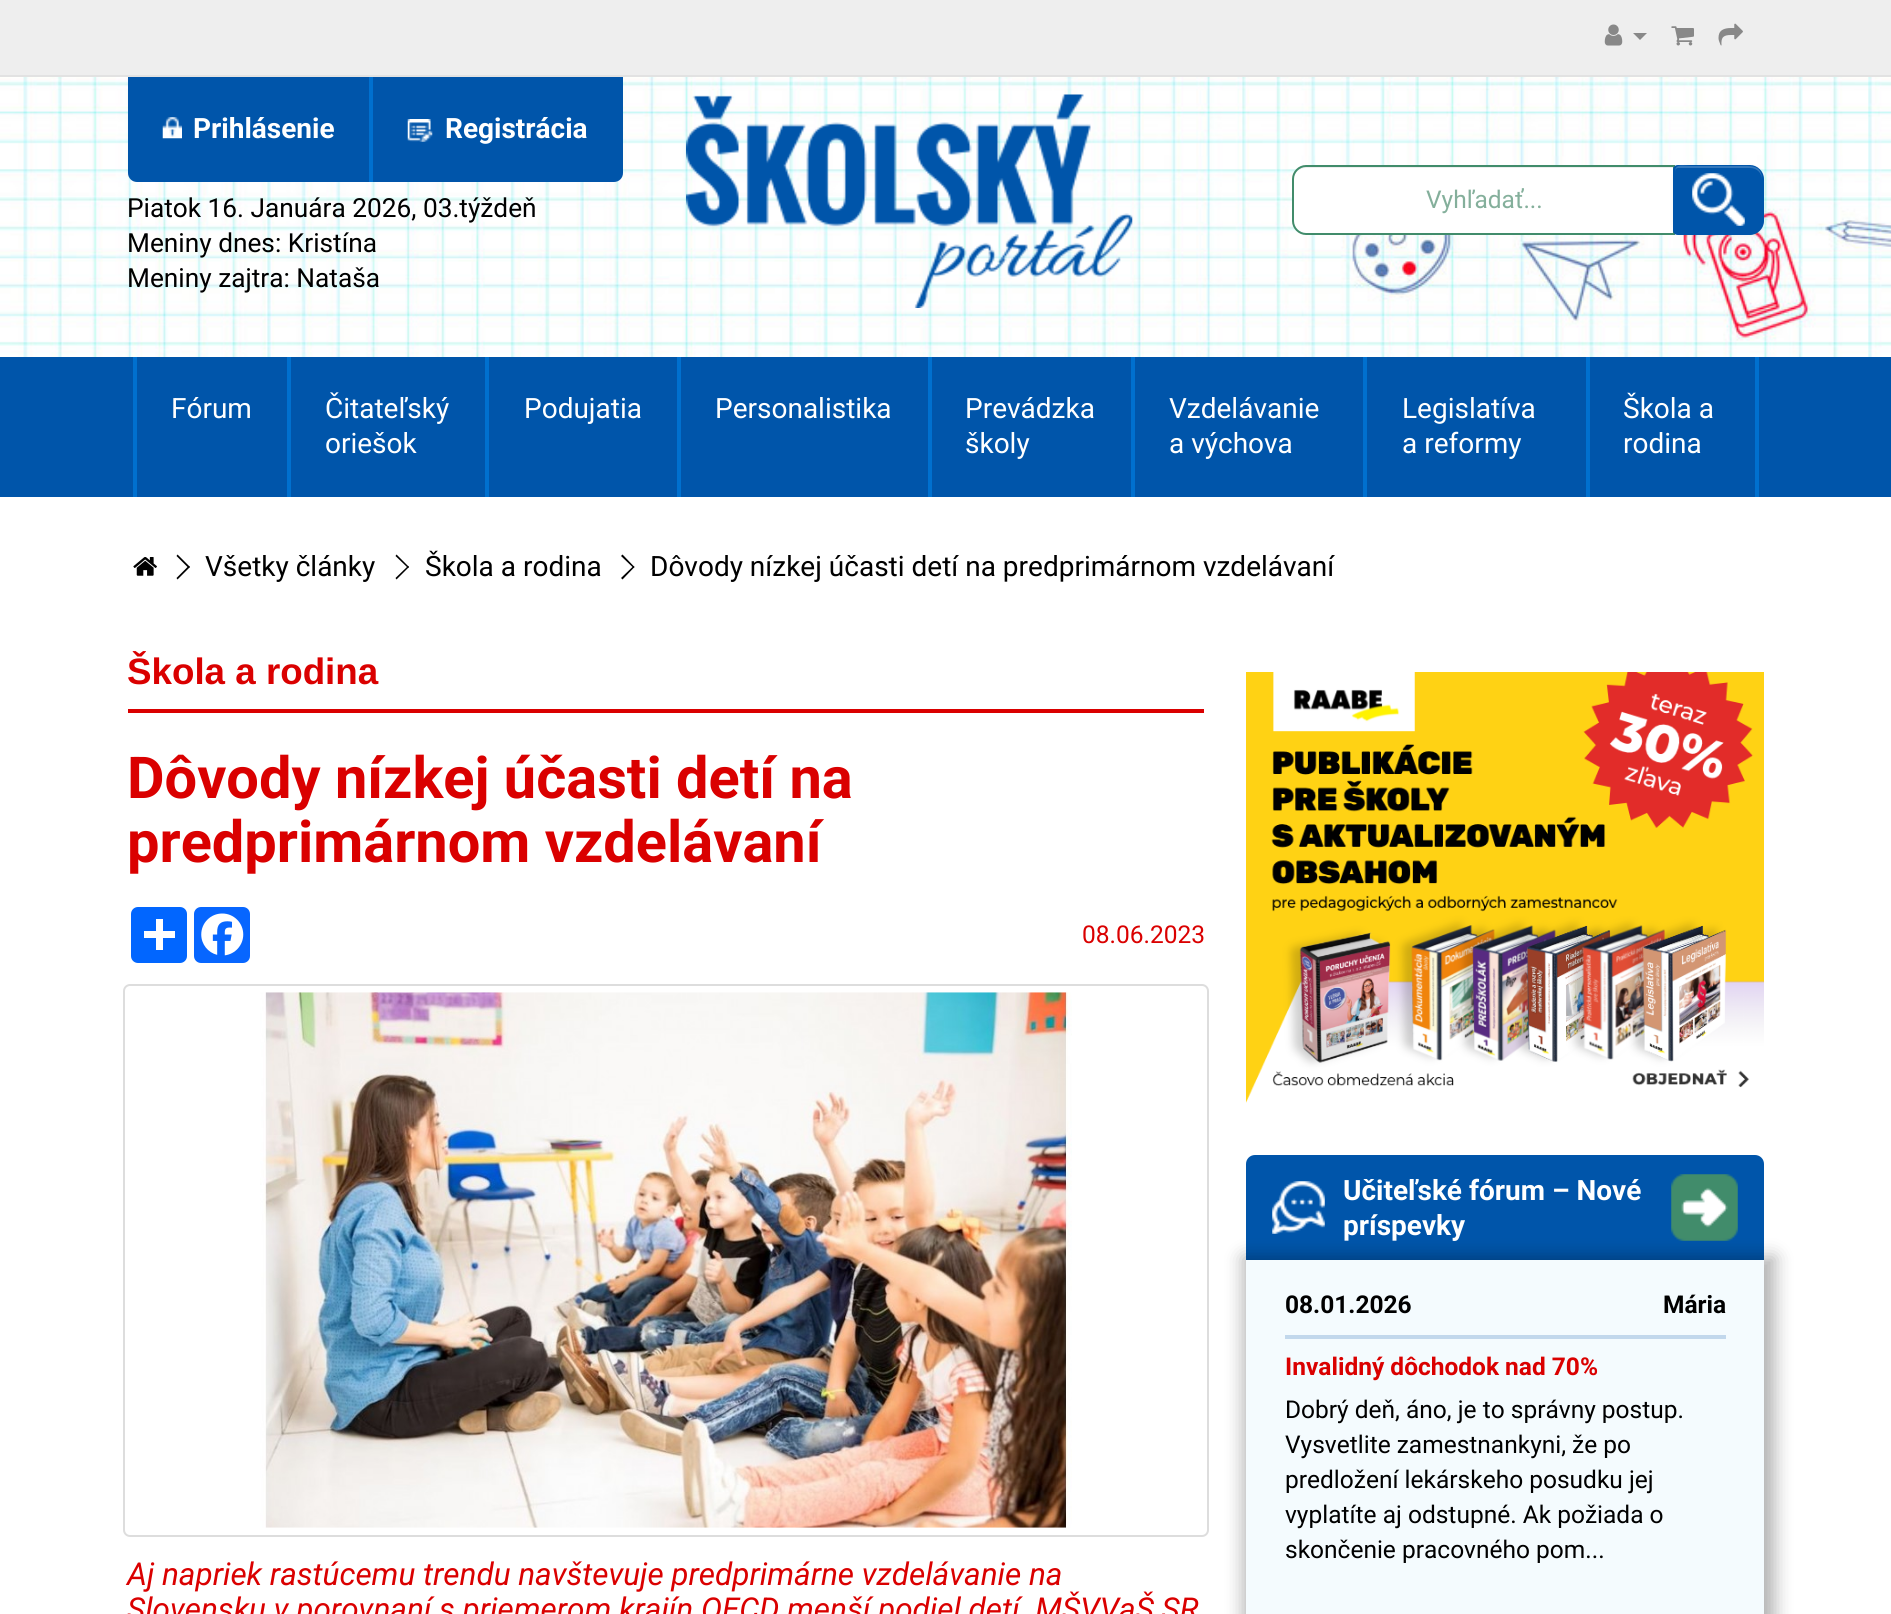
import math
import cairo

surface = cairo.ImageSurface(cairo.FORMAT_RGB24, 1891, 1614)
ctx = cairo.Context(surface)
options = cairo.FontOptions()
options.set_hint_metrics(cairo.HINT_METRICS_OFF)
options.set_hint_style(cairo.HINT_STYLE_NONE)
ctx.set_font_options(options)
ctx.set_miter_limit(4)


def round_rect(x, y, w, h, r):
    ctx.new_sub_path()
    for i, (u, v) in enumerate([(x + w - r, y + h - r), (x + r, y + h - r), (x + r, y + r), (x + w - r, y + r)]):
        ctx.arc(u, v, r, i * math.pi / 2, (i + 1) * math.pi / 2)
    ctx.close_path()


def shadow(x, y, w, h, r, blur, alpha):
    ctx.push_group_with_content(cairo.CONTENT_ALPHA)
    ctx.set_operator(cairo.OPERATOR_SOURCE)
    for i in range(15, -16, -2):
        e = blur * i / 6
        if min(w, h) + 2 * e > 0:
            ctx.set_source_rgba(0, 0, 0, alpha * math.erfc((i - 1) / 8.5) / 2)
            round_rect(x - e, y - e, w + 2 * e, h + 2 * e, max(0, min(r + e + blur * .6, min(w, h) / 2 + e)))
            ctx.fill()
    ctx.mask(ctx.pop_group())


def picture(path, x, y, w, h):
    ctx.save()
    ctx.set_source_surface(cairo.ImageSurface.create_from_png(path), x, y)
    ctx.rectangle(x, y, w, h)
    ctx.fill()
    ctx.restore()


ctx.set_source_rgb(1, 1, 1)
ctx.paint()
ctx.set_source_rgb(0.933, 0.933, 0.933)
ctx.rectangle(0, 0, 1891, 75)
ctx.fill()
ctx.set_source_rgb(0.886, 0.886, 0.886)
ctx.rectangle(0, 75, 1891, 2)
ctx.fill()
picture("img1.png", 1604, 24, 19, 22)
ctx.set_source_rgb(0.533, 0.533, 0.533)
ctx.new_path()
ctx.move_to(1633, 33)
ctx.line_to(1647, 33)
ctx.line_to(1640, 40)
ctx.close_path()
ctx.fill()
picture("img2.png", 1671, 26, 23, 20)
picture("img3.png", 1718, 23, 25, 23)
picture("img4.png", 0, 77, 1891, 280)
ctx.set_source_rgb(0, 0.333, 0.667)
ctx.new_path()
ctx.move_to(128, 77)
ctx.line_to(373, 77)
ctx.line_to(373, 182)
ctx.line_to(137, 182)
ctx.curve_to(132, 182, 128, 178, 128, 173)
ctx.close_path()
ctx.fill()
ctx.set_source_rgb(0, 0.439, 0.812)
ctx.rectangle(369, 77, 4, 105)
ctx.fill()
picture("img5.png", 162, 117, 20, 22)
ctx.select_font_face("Roboto", cairo.FONT_SLANT_NORMAL, cairo.FONT_WEIGHT_BOLD)
ctx.set_font_size(28)
ctx.set_source_rgb(1, 1, 1)
ctx.move_to(193, 138)
ctx.show_text("Prihlásenie")
ctx.set_source_rgb(0, 0.333, 0.667)
ctx.new_path()
ctx.move_to(373, 77)
ctx.line_to(623, 77)
ctx.line_to(623, 173)
ctx.curve_to(623, 178, 619, 182, 614, 182)
ctx.line_to(373, 182)
ctx.close_path()
ctx.fill()
picture("img6.png", 407, 119, 26, 23)
ctx.set_source_rgb(1, 1, 1)
ctx.move_to(445, 138)
ctx.show_text("Registrácia")
ctx.select_font_face("Roboto")
ctx.set_font_size(26.25)
ctx.set_source_rgb(0, 0, 0)
ctx.move_to(127, 217)
ctx.show_text("Piatok 16. Januára 2026, 03.týždeň")
ctx.move_to(127, 252)
ctx.show_text("Meniny dnes: Kristína")
ctx.move_to(127, 287)
ctx.show_text("Meniny zajtra: Nataša")
picture("img7.png", 686, 94, 447, 214)
ctx.set_source_rgb(1, 1, 1)
ctx.new_path()
ctx.move_to(1306, 165)
ctx.line_to(1675, 165)
ctx.line_to(1675, 235)
ctx.line_to(1306, 235)
ctx.curve_to(1298.5, 235, 1292, 228.5, 1292, 221)
ctx.line_to(1292, 179)
ctx.curve_to(1292, 171.5, 1298.5, 165, 1306, 165)
ctx.close_path()
ctx.fill()
ctx.set_source_rgba(0, 0, 0, 0.07)
ctx.new_path()
ctx.move_to(1306, 168)
ctx.line_to(1673, 168)
ctx.line_to(1673, 166)
ctx.line_to(1305, 166)
ctx.curve_to(1298, 166, 1293, 171, 1293, 178)
ctx.line_to(1293, 180)
ctx.curve_to(1293, 173, 1299, 168, 1306, 168)
ctx.close_path()
ctx.fill()
ctx.new_path()
ctx.move_to(1306, 166)
ctx.line_to(1674, 166)
ctx.line_to(1674, 234)
ctx.line_to(1306, 234)
ctx.curve_to(1299, 234, 1293, 228, 1293, 221)
ctx.line_to(1293, 179)
ctx.curve_to(1293, 172, 1299, 166, 1306, 166)
ctx.close_path()
ctx.set_source_rgb(0.255, 0.549, 0.42)
ctx.stroke()
ctx.set_font_size(24.5)
ctx.set_source_rgb(0.518, 0.686, 0.608)
ctx.move_to(1426, 208)
ctx.show_text("Vyhľadať...")
ctx.set_source_rgb(0, 0, 0)
shadow(1673, 166, 91, 70, 14, 2, 0.05)
ctx.set_source_rgb(0, 0.333, 0.667)
ctx.new_path()
ctx.move_to(1678, 165)
ctx.line_to(1750, 165)
ctx.curve_to(1757.5, 165, 1764, 171.5, 1764, 179)
ctx.line_to(1764, 221)
ctx.curve_to(1764, 228.5, 1757.5, 235, 1750, 235)
ctx.line_to(1678, 235)
ctx.curve_to(1675, 235, 1673, 233, 1673, 230)
ctx.line_to(1673, 170)
ctx.curve_to(1673, 167, 1675, 165, 1678, 165)
ctx.close_path()
ctx.fill()
ctx.set_source_rgb(0.2, 0.467, 0.733)
ctx.new_path()
ctx.move_to(1678, 168)
ctx.line_to(1750, 168)
ctx.curve_to(1757, 168, 1762, 173, 1762, 180)
ctx.curve_to(1762, 164, 1750, 166, 1738, 166)
ctx.line_to(1691, 166)
ctx.curve_to(1683, 166, 1675, 163, 1675, 172)
ctx.curve_to(1675, 170, 1676, 168, 1678, 168)
ctx.close_path()
ctx.fill()
picture("img8.png", 1692, 173, 53, 53)
ctx.set_source_rgb(0, 0.333, 0.667)
ctx.rectangle(0, 357, 1891, 140)
ctx.fill()
ctx.set_source_rgb(0, 0.439, 0.812)
ctx.rectangle(133, 357, 4, 140)
ctx.fill()
ctx.set_font_size(28)
ctx.set_source_rgb(1, 1, 1)
ctx.move_to(171, 418)
ctx.show_text("Fórum")
ctx.set_source_rgb(0, 0.439, 0.812)
ctx.rectangle(287, 357, 4, 140)
ctx.fill()
ctx.set_source_rgb(1, 1, 1)
ctx.move_to(325, 418)
ctx.show_text("Čitateľský")
ctx.move_to(325, 453)
ctx.show_text("oriešok")
ctx.set_source_rgb(0, 0.439, 0.812)
ctx.rectangle(485, 357, 4, 140)
ctx.fill()
ctx.set_source_rgb(1, 1, 1)
ctx.move_to(524, 418)
ctx.show_text("Podujatia")
ctx.set_source_rgb(0, 0.439, 0.812)
ctx.rectangle(677, 357, 4, 140)
ctx.fill()
ctx.set_source_rgb(1, 1, 1)
ctx.move_to(715, 418)
ctx.show_text("Personalistika")
ctx.set_source_rgb(0, 0.439, 0.812)
ctx.rectangle(928, 357, 4, 140)
ctx.fill()
ctx.set_source_rgb(1, 1, 1)
ctx.move_to(965, 418)
ctx.show_text("Prevádzka")
ctx.move_to(965, 453)
ctx.show_text("školy")
ctx.set_source_rgb(0, 0.439, 0.812)
ctx.rectangle(1131, 357, 4, 140)
ctx.fill()
ctx.set_source_rgb(1, 1, 1)
ctx.move_to(1169, 418)
ctx.show_text("Vzdelávanie")
ctx.move_to(1169, 453)
ctx.show_text("a výchova")
ctx.set_source_rgb(0, 0.439, 0.812)
ctx.rectangle(1363, 357, 4, 140)
ctx.fill()
ctx.set_source_rgb(1, 1, 1)
ctx.move_to(1402, 418)
ctx.show_text("Legislatíva")
ctx.move_to(1402, 453)
ctx.show_text("a reformy")
ctx.set_source_rgb(0, 0.439, 0.812)
ctx.rectangle(1755, 357, 4, 140)
ctx.fill()
ctx.rectangle(1586, 357, 4, 140)
ctx.fill()
ctx.set_source_rgb(1, 1, 1)
ctx.move_to(1623, 418)
ctx.show_text("Škola a")
ctx.move_to(1623, 453)
ctx.show_text("rodina")
picture("img9.png", 133, 557, 24, 19)
ctx.set_source_rgb(0, 0, 0)
ctx.new_path()
ctx.move_to(176.5, 556)
ctx.line_to(177.5, 554.5)
ctx.line_to(190, 567)
ctx.line_to(188.5, 568)
ctx.close_path()
ctx.fill()
ctx.new_path()
ctx.move_to(176.5, 578)
ctx.line_to(188.5, 566)
ctx.line_to(190, 567)
ctx.line_to(177.5, 579.5)
ctx.close_path()
ctx.fill()
ctx.move_to(205, 576)
ctx.show_text("Všetky články")
ctx.new_path()
ctx.move_to(395.5, 556)
ctx.line_to(396.5, 554.5)
ctx.line_to(409, 567)
ctx.line_to(408, 568)
ctx.close_path()
ctx.fill()
ctx.new_path()
ctx.move_to(395.5, 578)
ctx.line_to(408, 566)
ctx.line_to(409, 567)
ctx.line_to(396.5, 579.5)
ctx.close_path()
ctx.fill()
ctx.move_to(425, 576)
ctx.show_text("Škola a rodina")
ctx.new_path()
ctx.move_to(621, 556)
ctx.line_to(622.5, 554.5)
ctx.line_to(634.5, 567)
ctx.line_to(633.5, 568)
ctx.close_path()
ctx.fill()
ctx.new_path()
ctx.move_to(621, 578)
ctx.line_to(633.5, 566)
ctx.line_to(634.5, 567)
ctx.line_to(622.5, 579.5)
ctx.close_path()
ctx.fill()
ctx.move_to(650, 576)
ctx.show_text("Dôvody nízkej účasti detí na predprimárnom vzdelávaní")
ctx.set_source_rgb(0.855, 0, 0)
ctx.rectangle(128, 709, 1076, 4)
ctx.fill()
ctx.select_font_face("Liberation Sans", cairo.FONT_SLANT_NORMAL, cairo.FONT_WEIGHT_BOLD)
ctx.set_font_size(36.75)
ctx.move_to(127, 684)
ctx.show_text("Škola a rodina")
ctx.select_font_face("Roboto", cairo.FONT_SLANT_NORMAL, cairo.FONT_WEIGHT_BOLD)
ctx.set_font_size(57.75)
ctx.move_to(127, 798)
ctx.show_text("Dôvody nízkej účasti detí na")
ctx.move_to(127, 862)
ctx.show_text("predprimárnom vzdelávaní")
ctx.set_source_rgb(0.004, 0.4, 1)
round_rect(131, 907, 56, 56, 7)
ctx.fill()
ctx.set_source_rgb(1, 1, 1)
ctx.rectangle(156, 919, 7, 31)
ctx.fill()
ctx.rectangle(144, 931, 31, 7)
ctx.fill()
ctx.set_source_rgb(0.031, 0.4, 1)
round_rect(194, 907, 56, 56, 7)
ctx.fill()
picture("img10.png", 201, 913, 43, 43)
ctx.select_font_face("Roboto")
ctx.set_font_size(24.5)
ctx.set_source_rgb(0.855, 0, 0)
ctx.move_to(1082, 943)
ctx.show_text("08.06.2023")
round_rect(124, 985, 1084, 551, 6)
ctx.set_source_rgb(0.867, 0.867, 0.867)
ctx.stroke()
picture("img11.png", 260, 992, 812, 536)
ctx.select_font_face("Roboto", cairo.FONT_SLANT_ITALIC)
ctx.set_font_size(31.5)
ctx.set_source_rgb(0.855, 0, 0)
ctx.move_to(127, 1585)
ctx.show_text("Aj napriek rastúcemu trendu navštevuje predprimárne vzdelávanie na")
ctx.move_to(127, 1620)
ctx.show_text("Slovensku v porovnaní s priemerom krajín OECD menší podiel detí. MŠVVaŠ SR")
picture("img12.png", 1246, 672, 518, 431)
ctx.set_source_rgb(0, 0.333, 0.667)
ctx.new_path()
ctx.move_to(1255, 1155)
ctx.line_to(1755, 1155)
ctx.curve_to(1760, 1155, 1764, 1159, 1764, 1164)
ctx.line_to(1764, 1260)
ctx.line_to(1246, 1260)
ctx.line_to(1246, 1164)
ctx.curve_to(1246, 1159, 1250, 1155, 1255, 1155)
ctx.close_path()
ctx.fill()
picture("img13.png", 1272, 1181, 53, 53)
ctx.select_font_face("Roboto", cairo.FONT_SLANT_NORMAL, cairo.FONT_WEIGHT_BOLD)
ctx.set_font_size(28)
ctx.set_source_rgb(1, 1, 1)
ctx.move_to(1343, 1200)
ctx.show_text("Učiteľské fórum – Nové")
picture("img14.png", 1671, 1174, 67, 67)
ctx.move_to(1343, 1235)
ctx.show_text("príspevky")
ctx.set_source_rgb(0, 0, 0)
shadow(1243, 1257, 532, 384, 0, 9, 0.3)
ctx.set_source_rgb(0.957, 0.984, 0.996)
ctx.rectangle(1246, 1260, 518, 354)
ctx.fill()
ctx.set_font_size(24.5)
ctx.set_source_rgb(0, 0, 0)
ctx.move_to(1285, 1313)
ctx.show_text("08.01.2026")
ctx.move_to(1663, 1313)
ctx.show_text("Mária")
ctx.set_source_rgb(0.761, 0.847, 0.922)
ctx.rectangle(1285, 1335, 441, 4)
ctx.fill()
ctx.set_source_rgb(0.855, 0, 0)
ctx.move_to(1285, 1375)
ctx.show_text("Invalidný dôchodok nad 70%")
ctx.select_font_face("Roboto")
ctx.set_source_rgb(0, 0, 0)
ctx.move_to(1285, 1418)
ctx.show_text("Dobrý deň, áno, je to správny postup.")
ctx.move_to(1285, 1453)
ctx.show_text("Vysvetlite zamestnankyni, že po")
ctx.move_to(1285, 1488)
ctx.show_text("predložení lekárskeho posudku jej")
ctx.move_to(1285, 1523)
ctx.show_text("vyplatíte aj odstupné. Ak požiada o")
ctx.move_to(1285, 1558)
ctx.show_text("skončenie pracovného pom...")
surface.write_to_png("page.png")
